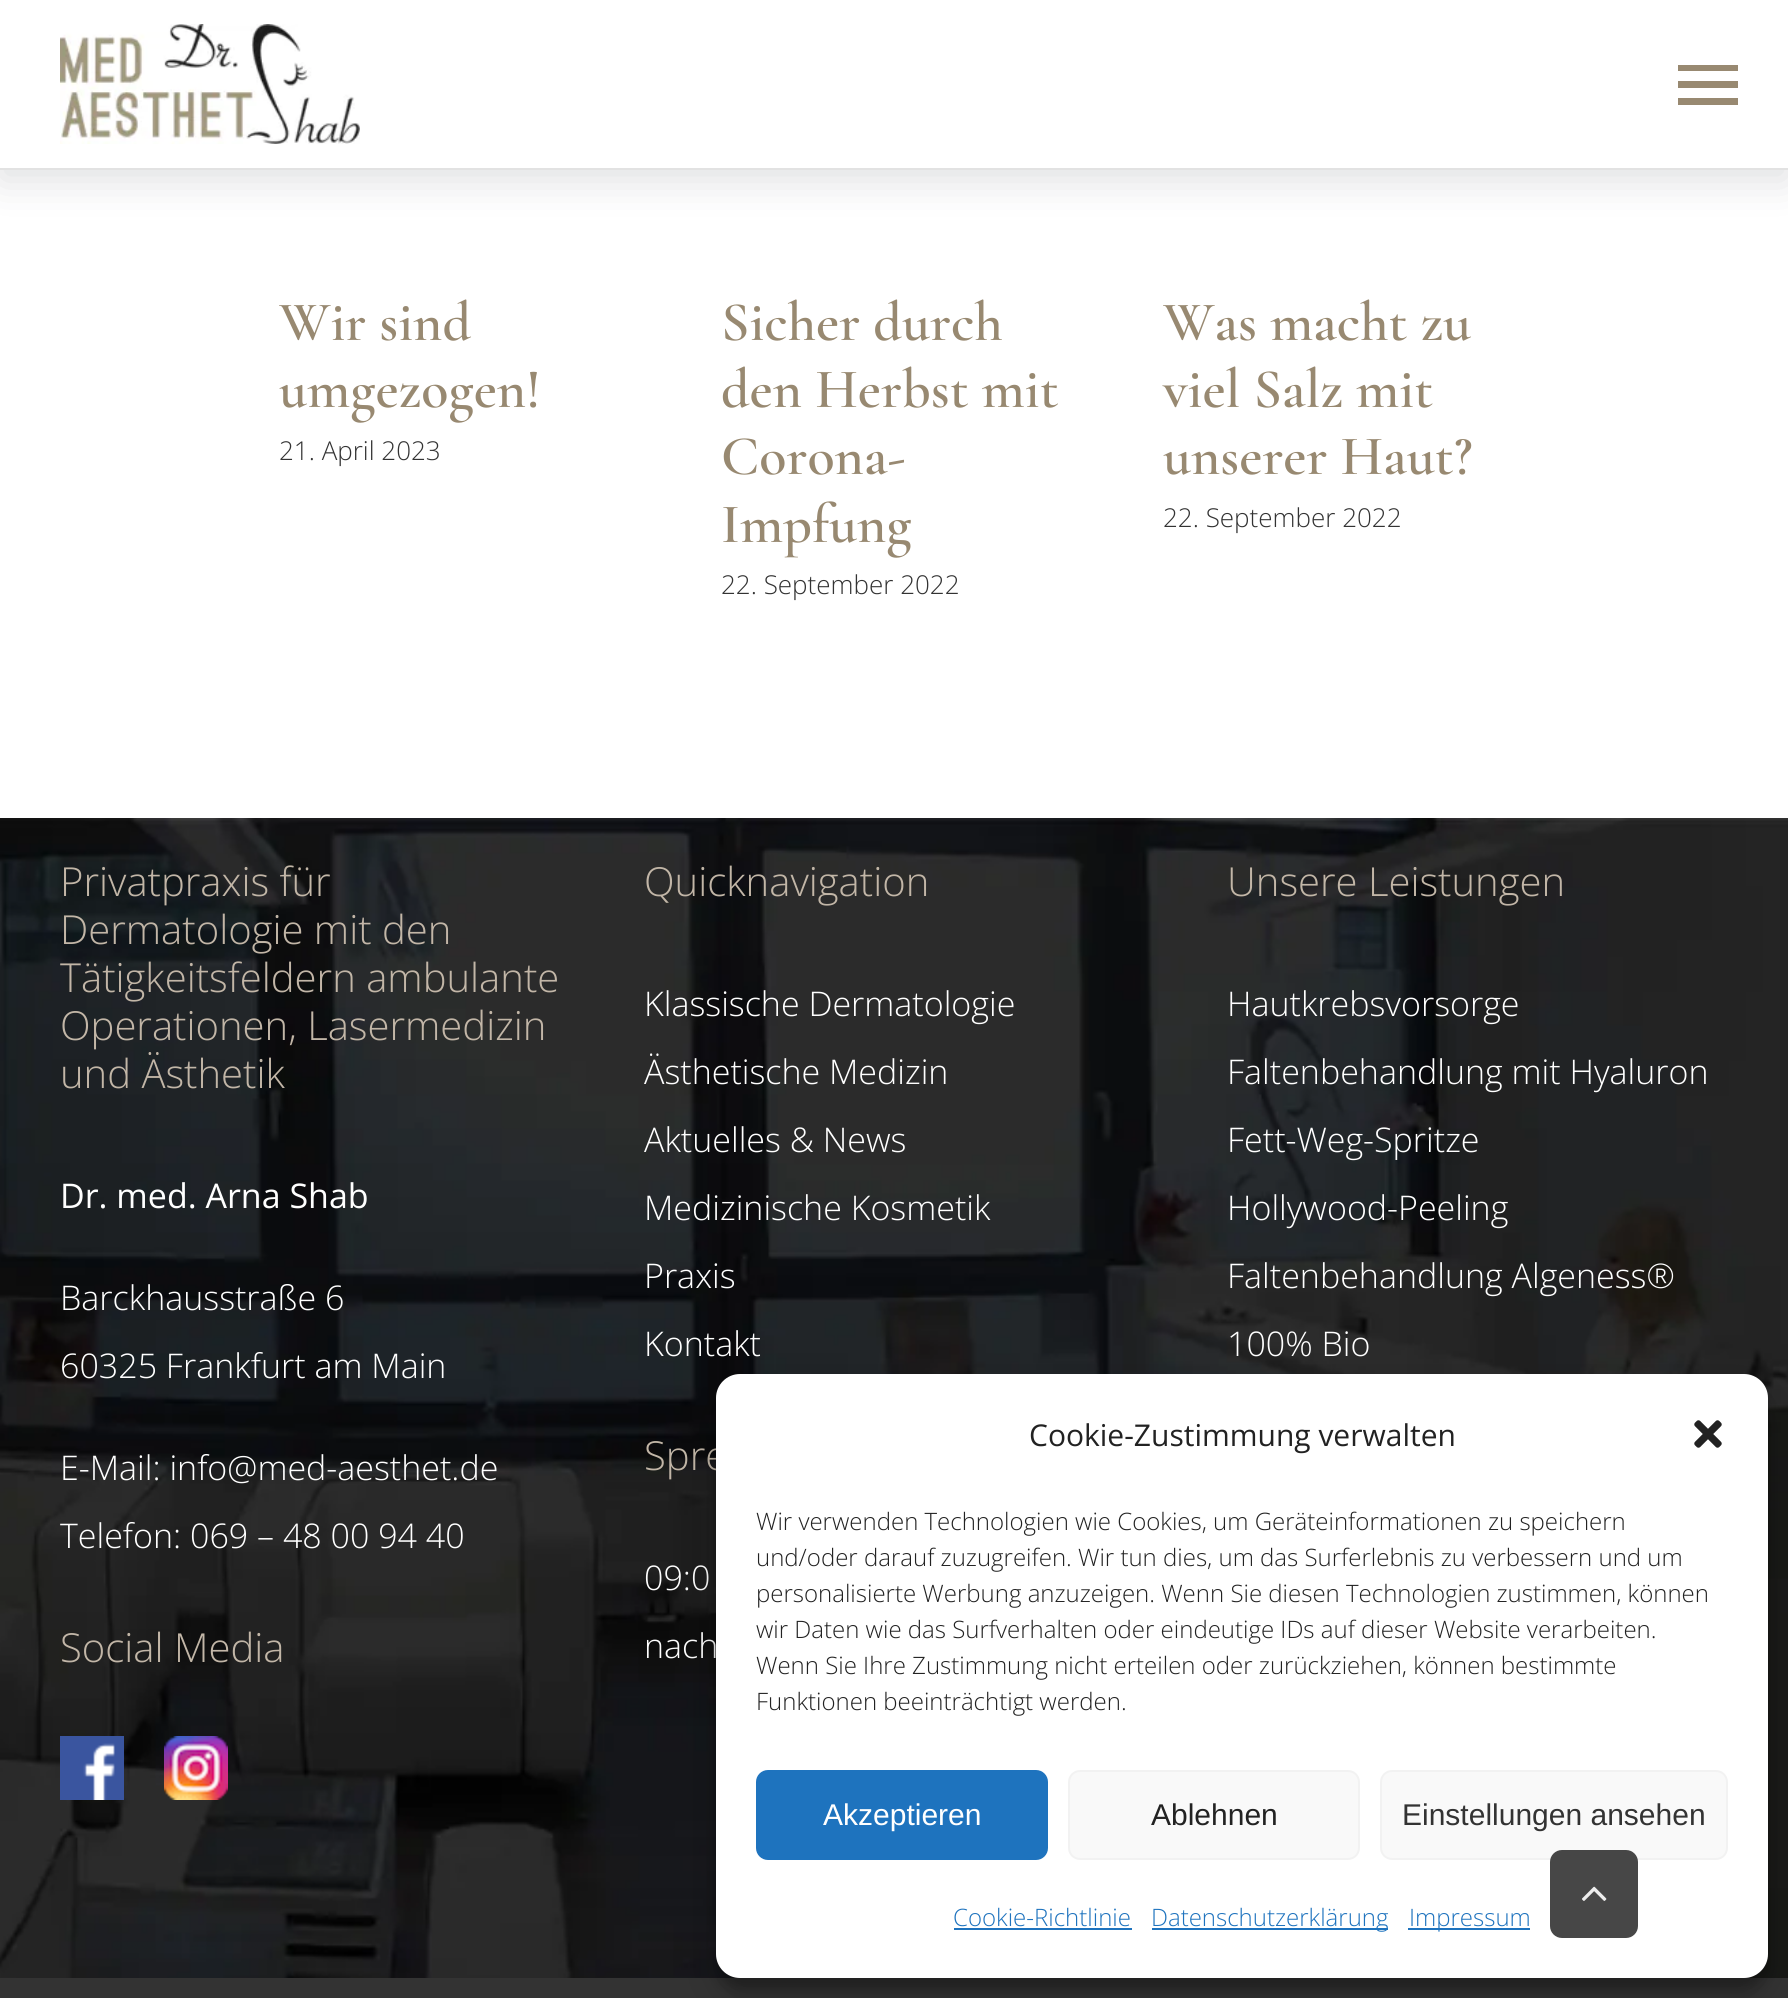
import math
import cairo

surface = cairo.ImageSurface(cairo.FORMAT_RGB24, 1788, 1998)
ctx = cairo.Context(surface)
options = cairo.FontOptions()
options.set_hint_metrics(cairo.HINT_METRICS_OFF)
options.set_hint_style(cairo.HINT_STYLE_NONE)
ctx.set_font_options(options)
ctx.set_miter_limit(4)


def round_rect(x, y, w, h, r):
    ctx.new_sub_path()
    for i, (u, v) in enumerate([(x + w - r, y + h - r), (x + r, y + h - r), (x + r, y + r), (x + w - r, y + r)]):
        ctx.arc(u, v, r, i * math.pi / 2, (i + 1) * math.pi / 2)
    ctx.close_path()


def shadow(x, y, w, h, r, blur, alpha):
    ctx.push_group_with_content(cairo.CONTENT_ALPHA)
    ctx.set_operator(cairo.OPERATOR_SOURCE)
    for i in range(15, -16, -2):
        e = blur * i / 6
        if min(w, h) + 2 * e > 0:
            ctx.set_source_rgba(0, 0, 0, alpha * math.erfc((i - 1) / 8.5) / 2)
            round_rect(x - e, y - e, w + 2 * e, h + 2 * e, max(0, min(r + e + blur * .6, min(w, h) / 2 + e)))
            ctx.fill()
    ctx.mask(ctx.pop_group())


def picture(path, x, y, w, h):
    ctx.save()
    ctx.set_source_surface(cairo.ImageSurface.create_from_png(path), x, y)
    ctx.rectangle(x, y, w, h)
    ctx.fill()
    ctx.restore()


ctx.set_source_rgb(1, 1, 1)
ctx.paint()
ctx.set_source_rgb(0.133, 0.165, 0.208)
shadow(0, 10, 1788, 170, 0, 20, 0.15)
ctx.set_source_rgb(1, 1, 1)
ctx.rectangle(0, 0, 1788, 168)
ctx.fill()
ctx.set_source_rgb(0.886, 0.886, 0.886)
ctx.rectangle(0, 168, 1788, 2)
ctx.fill()
picture("img1.png", 60, 24, 300, 120)
ctx.set_source_rgb(0.596, 0.537, 0.443)
ctx.new_path()
ctx.move_to(1678, 65)
ctx.line_to(1738, 65)
ctx.line_to(1738, 71)
ctx.line_to(1678, 71)
ctx.close_path()
ctx.move_to(1678, 88)
ctx.line_to(1678, 81)
ctx.line_to(1738, 81)
ctx.line_to(1738, 88)
ctx.close_path()
ctx.move_to(1678, 105)
ctx.line_to(1678, 98)
ctx.line_to(1738, 98)
ctx.line_to(1738, 105)
ctx.close_path()
ctx.fill()
ctx.select_font_face("Cormorant Garamond SemiBold")
ctx.set_font_size(56)
ctx.move_to(279, 340)
ctx.show_text("Wir sind")
ctx.move_to(279, 407)
ctx.show_text("umgezogen!")
ctx.select_font_face("Open Sans Light")
ctx.set_font_size(26)
ctx.set_source_rgb(0.2, 0.2, 0.2)
ctx.move_to(279, 460)
ctx.show_text("21. April 2023")
ctx.select_font_face("Cormorant Garamond SemiBold")
ctx.set_font_size(56)
ctx.set_source_rgb(0.596, 0.537, 0.443)
ctx.move_to(721, 340)
ctx.show_text("Sicher durch")
ctx.move_to(721, 407)
ctx.show_text("den Herbst mit")
ctx.move_to(721, 474)
ctx.show_text("Corona-")
ctx.move_to(721, 542)
ctx.show_text("Impfung")
ctx.select_font_face("Open Sans Light")
ctx.set_font_size(26)
ctx.set_source_rgb(0.2, 0.2, 0.2)
ctx.move_to(721, 594)
ctx.show_text("22. September 2022")
ctx.select_font_face("Cormorant Garamond SemiBold")
ctx.set_font_size(56)
ctx.set_source_rgb(0.596, 0.537, 0.443)
ctx.move_to(1163, 340)
ctx.show_text("Was macht zu")
ctx.move_to(1163, 407)
ctx.show_text("viel Salz mit")
ctx.move_to(1163, 474)
ctx.show_text("unserer Haut?")
ctx.select_font_face("Open Sans Light")
ctx.set_font_size(26)
ctx.set_source_rgb(0.2, 0.2, 0.2)
ctx.move_to(1163, 527)
ctx.show_text("22. September 2022")
picture("img2.png", 0, 818, 1788, 1160)
ctx.set_font_size(40)
ctx.set_source_rgb(0.761, 0.714, 0.655)
ctx.move_to(60, 896)
ctx.show_text("Privatpraxis für")
ctx.move_to(60, 944)
ctx.show_text("Dermatologie mit den")
ctx.move_to(60, 992)
ctx.show_text("Tätigkeitsfeldern ambulante")
ctx.move_to(60, 1040)
ctx.show_text("Operationen, Lasermedizin")
ctx.move_to(60, 1088)
ctx.show_text("und Ästhetik")
ctx.select_font_face("Open Sans")
ctx.set_font_size(34)
ctx.set_source_rgb(1, 1, 1)
ctx.move_to(60, 1208)
ctx.show_text("Dr. med. Arna Shab")
ctx.select_font_face("Open Sans Light")
ctx.move_to(60, 1310)
ctx.show_text("Barckhausstraße 6")
ctx.move_to(60, 1378)
ctx.show_text("60325 Frankfurt am Main")
ctx.move_to(60, 1480)
ctx.show_text("E-Mail: info@med-aesthet.de")
ctx.move_to(60, 1548)
ctx.show_text("Telefon: 069 – 48 00 94 40")
ctx.set_font_size(40)
ctx.set_source_rgb(0.761, 0.714, 0.655)
ctx.move_to(60, 1662)
ctx.show_text("Social Media")
picture("img3.png", 60, 1736, 64, 64)
picture("img4.png", 164, 1736, 64, 64)
ctx.move_to(644, 896)
ctx.show_text("Quicknavigation")
ctx.set_font_size(34)
ctx.set_source_rgb(1, 1, 1)
ctx.move_to(644, 1016)
ctx.show_text("Klassische Dermatologie")
ctx.move_to(644, 1084)
ctx.show_text("Ästhetische Medizin")
ctx.move_to(644, 1152)
ctx.show_text("Aktuelles & News")
ctx.move_to(644, 1220)
ctx.show_text("Medizinische Kosmetik")
ctx.move_to(644, 1288)
ctx.show_text("Praxis")
ctx.move_to(644, 1356)
ctx.show_text("Kontakt")
ctx.set_font_size(40)
ctx.set_source_rgb(0.761, 0.714, 0.655)
ctx.move_to(644, 1470)
ctx.show_text("Spre")
ctx.set_font_size(34)
ctx.set_source_rgb(1, 1, 1)
ctx.move_to(644, 1590)
ctx.show_text("09:0")
ctx.move_to(644, 1658)
ctx.show_text("nach")
ctx.set_font_size(40)
ctx.set_source_rgb(0.761, 0.714, 0.655)
ctx.move_to(1227, 896)
ctx.show_text("Unsere Leistungen")
ctx.set_font_size(34)
ctx.set_source_rgb(1, 1, 1)
ctx.move_to(1227, 1016)
ctx.show_text("Hautkrebsvorsorge")
ctx.move_to(1227, 1084)
ctx.show_text("Faltenbehandlung mit Hyaluron")
ctx.move_to(1227, 1152)
ctx.show_text("Fett-Weg-Spritze")
ctx.move_to(1227, 1220)
ctx.show_text("Hollywood-Peeling")
ctx.move_to(1227, 1288)
ctx.show_text("Faltenbehandlung Algeness®")
ctx.move_to(1227, 1356)
ctx.show_text("100% Bio")
ctx.set_source_rgb(0.2, 0.2, 0.2)
ctx.rectangle(0, 1978, 1788, 20)
ctx.fill()
ctx.set_source_rgb(0, 0, 0)
shadow(716, 1386, 1052, 604, 24, 6, 0.23)
shadow(716, 1394, 1052, 604, 24, 20, 0.19)
ctx.set_source_rgb(1, 1, 1)
round_rect(716, 1374, 1052, 604, 24)
ctx.fill()
ctx.select_font_face("Open Sans")
ctx.set_font_size(30)
ctx.set_source_rgb(0.133, 0.133, 0.133)
ctx.move_to(1029, 1446)
ctx.show_text("Cookie-Zustimmung verwalten")
picture("img5.png", 1694, 1420, 28, 28)
ctx.select_font_face("Open Sans Light")
ctx.set_font_size(24)
ctx.move_to(756, 1530)
ctx.show_text("Wir verwenden Technologien wie Cookies, um Geräteinformationen zu speichern")
ctx.move_to(756, 1566)
ctx.show_text("und/oder darauf zuzugreifen. Wir tun dies, um das Surferlebnis zu verbessern und um")
ctx.move_to(756, 1602)
ctx.show_text("personalisierte Werbung anzuzeigen. Wenn Sie diesen Technologien zustimmen, können")
ctx.move_to(756, 1638)
ctx.show_text("wir Daten wie das Surfverhalten oder eindeutige IDs auf dieser Website verarbeiten.")
ctx.move_to(756, 1674)
ctx.show_text("Wenn Sie Ihre Zustimmung nicht erteilen oder zurückziehen, können bestimmte")
ctx.move_to(756, 1710)
ctx.show_text("Funktionen beeinträchtigt werden.")
ctx.set_source_rgb(0.118, 0.451, 0.745)
round_rect(757, 1771, 290, 88, 11)
ctx.fill_preserve()
ctx.stroke()
ctx.select_font_face("Liberation Sans")
ctx.set_font_size(30)
ctx.set_source_rgb(1, 1, 1)
ctx.move_to(823, 1825)
ctx.show_text("Akzeptieren")
ctx.set_source_rgb(0.976, 0.976, 0.976)
round_rect(1069, 1771, 290, 88, 11)
ctx.fill_preserve()
ctx.set_source_rgb(0.949, 0.949, 0.949)
ctx.stroke()
ctx.set_source_rgb(0.133, 0.133, 0.133)
ctx.move_to(1151, 1825)
ctx.show_text("Ablehnen")
ctx.set_source_rgb(0.976, 0.976, 0.976)
round_rect(1381, 1771, 346, 88, 11)
ctx.fill_preserve()
ctx.set_source_rgb(0.949, 0.949, 0.949)
ctx.stroke()
ctx.set_source_rgb(0.2, 0.2, 0.2)
ctx.move_to(1402, 1825)
ctx.show_text("Einstellungen ansehen")
ctx.select_font_face("Open Sans Light")
ctx.set_font_size(24)
ctx.set_source_rgb(0.118, 0.451, 0.745)
ctx.move_to(953, 1926)
ctx.show_text("Cookie-Richtlinie")
ctx.rectangle(954, 1928, 178, 2)
ctx.fill()
ctx.rectangle(1152, 1928, 236, 2)
ctx.fill()
ctx.move_to(1151, 1926)
ctx.show_text("Datenschutzerklärung")
ctx.rectangle(1408, 1928, 122, 2)
ctx.fill()
ctx.move_to(1409, 1926)
ctx.show_text("Impressum")
ctx.set_source_rgba(0.2, 0.2, 0.2, 0.9)
round_rect(1550, 1850, 88, 88, 12)
ctx.fill()
picture("img6.png", 1582, 1886, 25, 15)
surface.write_to_png("page.png")
